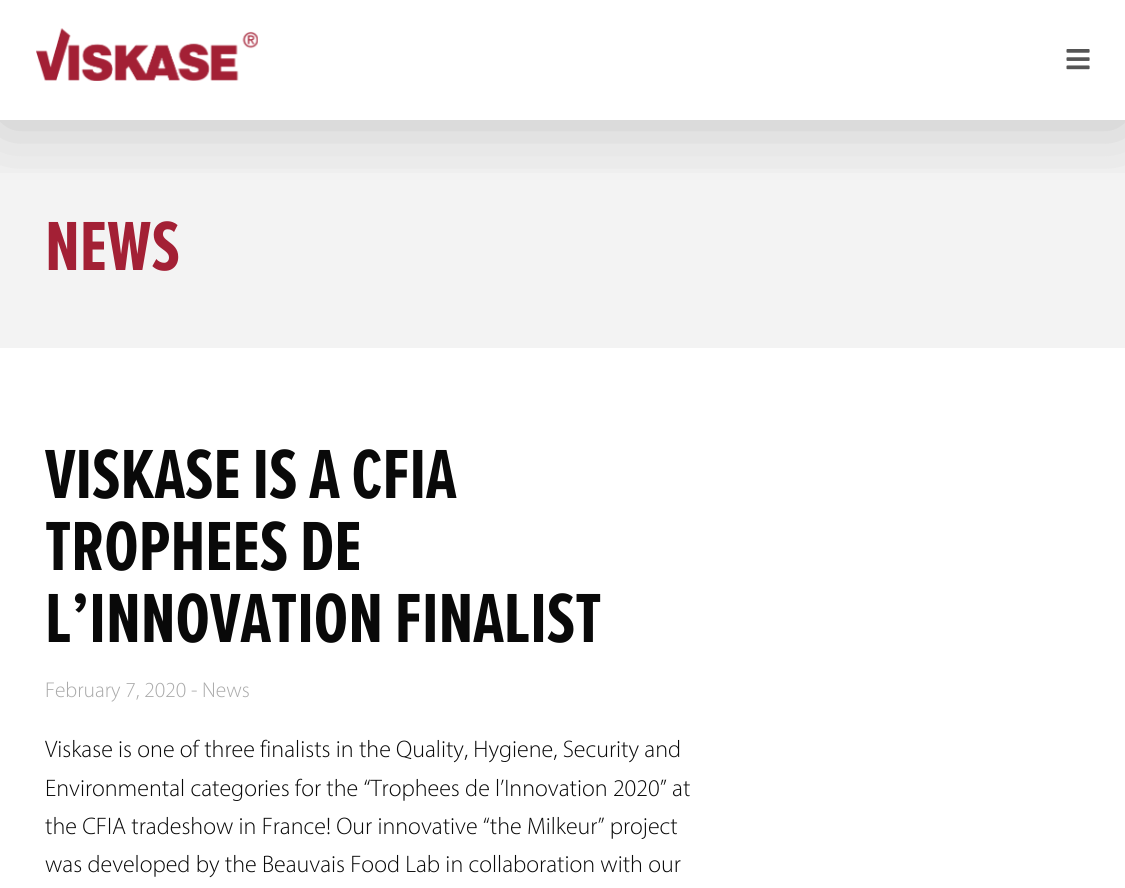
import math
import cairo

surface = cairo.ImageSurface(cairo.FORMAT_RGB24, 1125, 888)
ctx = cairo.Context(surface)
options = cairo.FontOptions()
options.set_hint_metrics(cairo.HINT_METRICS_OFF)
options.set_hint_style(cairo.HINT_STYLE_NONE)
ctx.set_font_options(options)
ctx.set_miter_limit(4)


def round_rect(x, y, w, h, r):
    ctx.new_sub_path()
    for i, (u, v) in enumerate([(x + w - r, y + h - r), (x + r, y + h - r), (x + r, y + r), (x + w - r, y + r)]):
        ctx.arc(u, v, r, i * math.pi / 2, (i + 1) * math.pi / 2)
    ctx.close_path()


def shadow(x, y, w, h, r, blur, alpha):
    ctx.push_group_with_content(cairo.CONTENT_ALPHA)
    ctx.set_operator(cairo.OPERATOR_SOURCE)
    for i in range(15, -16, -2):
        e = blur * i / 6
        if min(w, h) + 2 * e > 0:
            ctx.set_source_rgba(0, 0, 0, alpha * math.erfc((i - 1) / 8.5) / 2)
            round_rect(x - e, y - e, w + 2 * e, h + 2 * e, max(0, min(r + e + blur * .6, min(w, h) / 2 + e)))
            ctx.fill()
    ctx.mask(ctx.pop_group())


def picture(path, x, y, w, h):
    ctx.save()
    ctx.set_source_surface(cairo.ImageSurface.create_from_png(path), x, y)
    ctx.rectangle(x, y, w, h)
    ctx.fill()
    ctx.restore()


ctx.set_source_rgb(1, 1, 1)
ctx.paint()
ctx.set_source_rgb(0.953, 0.953, 0.953)
ctx.rectangle(0, 120, 1125, 228)
ctx.fill()
ctx.save()
ctx.rectangle(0, 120, 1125, 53)
ctx.clip()
ctx.set_source_rgb(0, 0, 0)
shadow(-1, 2, 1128, 123, 0, 37.5, 0.2)
ctx.restore()
picture("img1.png", 36, 28, 222, 53)
picture("img2.png", 1066, 49, 24, 21)
ctx.select_font_face("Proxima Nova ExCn", cairo.FONT_SLANT_NORMAL, cairo.FONT_WEIGHT_BOLD)
ctx.set_font_size(72)
ctx.set_source_rgb(0.639, 0.125, 0.208)
ctx.move_to(45, 270)
ctx.show_text("NEWS")
ctx.set_source_rgb(0.039, 0.039, 0.039)
ctx.move_to(45, 498)
ctx.show_text("VISKASE IS A CFIA")
ctx.move_to(45, 570)
ctx.show_text("TROPHEES DE")
ctx.move_to(45, 642)
ctx.show_text("L’INNOVATION FINALIST")
ctx.select_font_face("Myriad Light")
ctx.set_font_size(21.5)
ctx.set_source_rgb(0.667, 0.667, 0.667)
ctx.move_to(45, 697)
ctx.show_text("February 7, 2020 - News")
ctx.set_font_size(24)
ctx.set_source_rgb(0.039, 0.039, 0.039)
ctx.move_to(45, 757)
ctx.show_text("Viskase is one of three finalists in the Quality, Hygiene, Security and")
ctx.move_to(45, 796)
ctx.show_text("Environmental categories for the “Trophees de l’Innovation 2020” at")
ctx.move_to(45, 834)
ctx.show_text("the CFIA tradeshow in France! Our innovative “the Milkeur” project")
ctx.move_to(45, 872)
ctx.show_text("was developed by the Beauvais Food Lab in collaboration with our")
surface.write_to_png("page.png")
